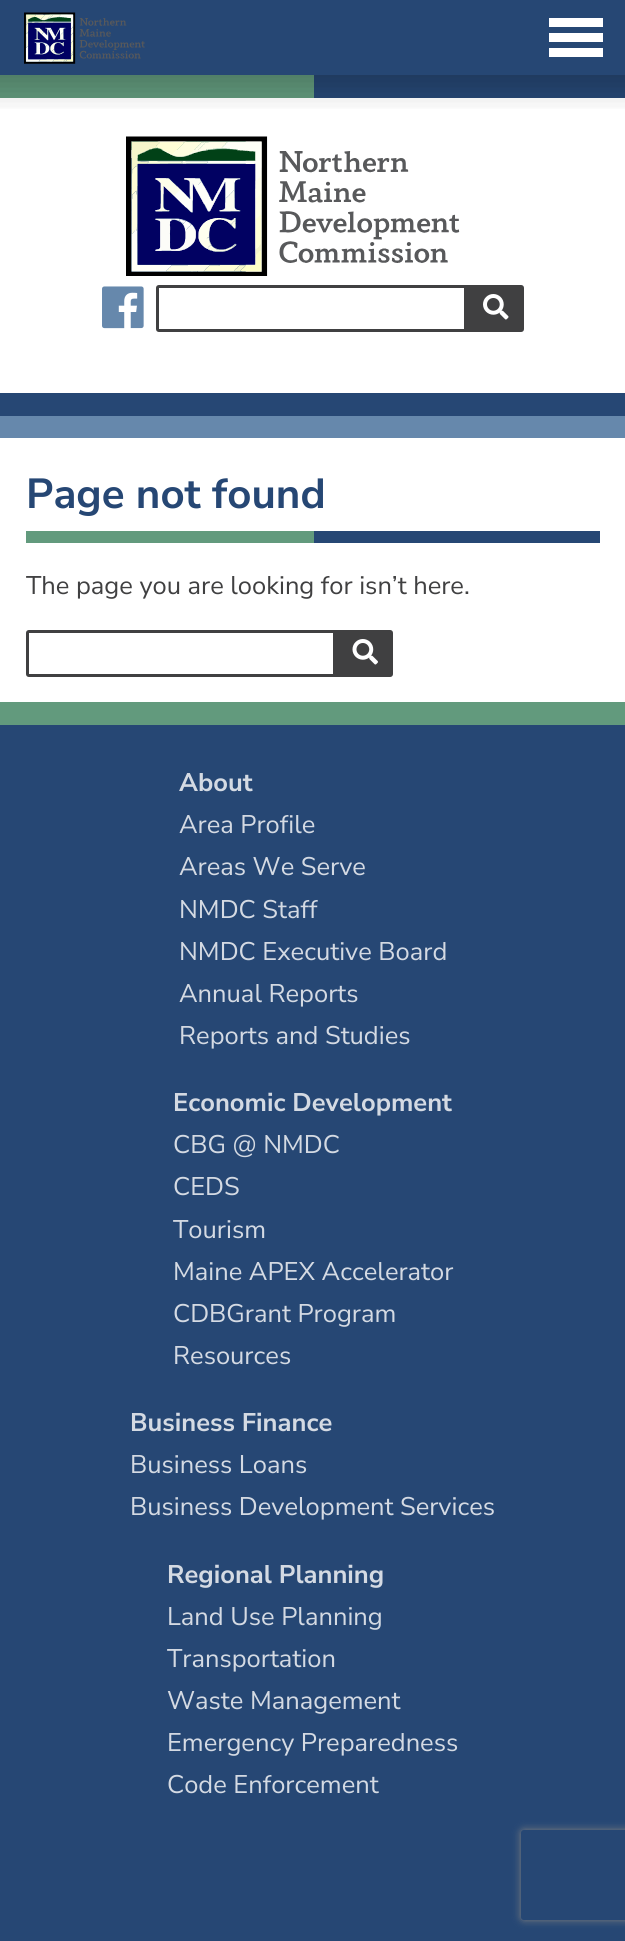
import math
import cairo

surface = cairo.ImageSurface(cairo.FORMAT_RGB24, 625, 1941)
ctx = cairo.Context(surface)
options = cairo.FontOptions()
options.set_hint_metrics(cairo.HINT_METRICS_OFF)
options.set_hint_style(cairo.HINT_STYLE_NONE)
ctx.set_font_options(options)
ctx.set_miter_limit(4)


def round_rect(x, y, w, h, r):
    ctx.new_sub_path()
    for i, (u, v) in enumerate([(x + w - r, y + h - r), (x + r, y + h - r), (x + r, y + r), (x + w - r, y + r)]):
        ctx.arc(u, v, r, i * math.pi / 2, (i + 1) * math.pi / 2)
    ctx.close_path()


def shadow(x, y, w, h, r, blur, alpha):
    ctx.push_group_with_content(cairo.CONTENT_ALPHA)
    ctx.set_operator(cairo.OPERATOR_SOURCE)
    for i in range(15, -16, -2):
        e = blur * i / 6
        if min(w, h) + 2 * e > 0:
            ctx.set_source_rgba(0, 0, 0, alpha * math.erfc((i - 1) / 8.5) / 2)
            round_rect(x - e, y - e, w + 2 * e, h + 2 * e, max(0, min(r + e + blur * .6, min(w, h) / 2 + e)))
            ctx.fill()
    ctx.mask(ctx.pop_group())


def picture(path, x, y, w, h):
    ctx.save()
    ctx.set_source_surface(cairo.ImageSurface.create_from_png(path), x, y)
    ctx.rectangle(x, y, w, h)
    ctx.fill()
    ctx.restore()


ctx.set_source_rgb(0.149, 0.278, 0.455)
ctx.paint()
ctx.set_source_rgb(1, 1, 1)
ctx.rectangle(0, 98, 625, 604)
ctx.fill()
ctx.set_source_rgb(0.384, 0.604, 0.49)
ctx.rectangle(0, 75, 314, 23)
ctx.fill()
ctx.set_source_rgb(0.149, 0.278, 0.455)
ctx.rectangle(0, 393, 625, 23)
ctx.fill()
ctx.save()
ctx.rectangle(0, 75, 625, 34)
ctx.clip()
ctx.set_source_rgb(0, 0, 0)
shadow(-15, -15, 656, 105, 0, 15, 0.2)
ctx.restore()
picture("img1.png", 24, 12, 121, 52)
ctx.set_source_rgb(1, 1, 1)
ctx.rectangle(549, 33, 54, 9)
ctx.fill()
ctx.rectangle(549, 18, 54, 9)
ctx.fill()
ctx.rectangle(549, 48, 54, 9)
ctx.fill()
picture("img2.png", 102, 286, 42, 43)
ctx.new_path()
ctx.move_to(159, 286.5)
ctx.line_to(465.5, 286.5)
ctx.line_to(465.5, 330.5)
ctx.line_to(159, 330.5)
ctx.curve_to(158, 330.5, 157.5, 330, 157.5, 329)
ctx.line_to(157.5, 288)
ctx.curve_to(157.5, 287, 158, 286.5, 159, 286.5)
ctx.close_path()
ctx.set_source_rgb(0.251, 0.251, 0.255)
ctx.set_line_width(3)
ctx.stroke()
ctx.new_path()
ctx.move_to(468.5, 286.5)
ctx.line_to(521, 286.5)
ctx.curve_to(522, 286.5, 522.5, 287, 522.5, 288)
ctx.line_to(522.5, 329)
ctx.curve_to(522.5, 330, 522, 330.5, 521, 330.5)
ctx.line_to(468.5, 330.5)
ctx.close_path()
ctx.fill_preserve()
ctx.stroke()
picture("img3.png", 483, 294, 26, 26)
picture("img4.png", 126, 136, 334, 140)
ctx.set_source_rgb(0.4, 0.533, 0.675)
ctx.rectangle(0, 416, 625, 22)
ctx.fill()
ctx.set_source_rgb(0.384, 0.604, 0.49)
ctx.rectangle(26, 531, 288, 12)
ctx.fill()
ctx.select_font_face("Nunito Sans", cairo.FONT_SLANT_NORMAL, cairo.FONT_WEIGHT_BOLD)
ctx.set_font_size(42)
ctx.set_source_rgb(0.149, 0.278, 0.455)
ctx.move_to(26, 508)
ctx.show_text("Page not found")
ctx.rectangle(314, 531, 286, 12)
ctx.fill()
ctx.select_font_face("Nunito Sans")
ctx.set_font_size(25.5)
ctx.set_source_rgb(0.251, 0.251, 0.255)
ctx.move_to(26, 594)
ctx.show_text("The page you are looking for isn’t here.")
ctx.new_path()
ctx.move_to(29, 631.5)
ctx.line_to(334.5, 631.5)
ctx.line_to(334.5, 675.5)
ctx.line_to(29, 675.5)
ctx.curve_to(28, 675.5, 27.5, 675, 27.5, 674)
ctx.line_to(27.5, 633)
ctx.curve_to(27.5, 632, 28, 631.5, 29, 631.5)
ctx.close_path()
ctx.stroke()
ctx.new_path()
ctx.move_to(337.5, 631.5)
ctx.line_to(390, 631.5)
ctx.curve_to(391, 631.5, 391.5, 632, 391.5, 633)
ctx.line_to(391.5, 674)
ctx.curve_to(391.5, 675, 391, 675.5, 390, 675.5)
ctx.line_to(337.5, 675.5)
ctx.close_path()
ctx.fill_preserve()
ctx.stroke()
picture("img5.png", 352, 639, 26, 26)
ctx.set_source_rgb(0.384, 0.604, 0.49)
ctx.rectangle(0, 702, 625, 23)
ctx.fill()
ctx.select_font_face("Nunito Sans", cairo.FONT_SLANT_NORMAL, cairo.FONT_WEIGHT_BOLD)
ctx.set_source_rgb(0.831, 0.855, 0.89)
ctx.move_to(179, 791)
ctx.show_text("About")
ctx.select_font_face("Nunito Sans")
ctx.move_to(179, 833)
ctx.show_text("Area Profile")
ctx.move_to(179, 875)
ctx.show_text("Areas We Serve")
ctx.move_to(179, 918)
ctx.show_text("NMDC Staff")
ctx.move_to(179, 960)
ctx.show_text("NMDC Executive Board")
ctx.move_to(179, 1002)
ctx.show_text("Annual Reports")
ctx.move_to(179, 1044)
ctx.show_text("Reports and Studies")
ctx.select_font_face("Nunito Sans", cairo.FONT_SLANT_NORMAL, cairo.FONT_WEIGHT_BOLD)
ctx.move_to(173, 1111)
ctx.show_text("Economic Development")
ctx.select_font_face("Nunito Sans")
ctx.move_to(173, 1153)
ctx.show_text("CBG @ NMDC")
ctx.move_to(173, 1195)
ctx.show_text("CEDS")
ctx.move_to(173, 1238)
ctx.show_text("Tourism")
ctx.move_to(173, 1280)
ctx.show_text("Maine APEX Accelerator")
ctx.move_to(173, 1322)
ctx.show_text("CDBGrant Program")
ctx.move_to(173, 1364)
ctx.show_text("Resources")
ctx.select_font_face("Nunito Sans", cairo.FONT_SLANT_NORMAL, cairo.FONT_WEIGHT_BOLD)
ctx.move_to(130, 1431)
ctx.show_text("Business Finance")
ctx.select_font_face("Nunito Sans")
ctx.move_to(130, 1473)
ctx.show_text("Business Loans")
ctx.move_to(130, 1515)
ctx.show_text("Business Development Services")
ctx.select_font_face("Nunito Sans", cairo.FONT_SLANT_NORMAL, cairo.FONT_WEIGHT_BOLD)
ctx.move_to(167, 1583)
ctx.show_text("Regional Planning")
ctx.select_font_face("Nunito Sans")
ctx.move_to(167, 1625)
ctx.show_text("Land Use Planning")
ctx.move_to(167, 1667)
ctx.show_text("Transportation")
ctx.move_to(167, 1709)
ctx.show_text("Waste Management")
ctx.move_to(167, 1751)
ctx.show_text("Emergency Preparedness")
ctx.move_to(167, 1793)
ctx.show_text("Code Enforcement")
ctx.save()
ctx.set_fill_rule(cairo.FILL_RULE_EVEN_ODD)
ctx.new_path()
ctx.move_to(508, 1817)
ctx.line_to(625, 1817)
ctx.line_to(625, 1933)
ctx.line_to(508, 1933)
ctx.close_path()
ctx.move_to(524, 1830)
ctx.line_to(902, 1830)
ctx.curve_to(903.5, 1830, 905, 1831.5, 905, 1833)
ctx.line_to(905, 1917)
ctx.curve_to(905, 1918.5, 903.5, 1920, 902, 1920)
ctx.line_to(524, 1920)
ctx.curve_to(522.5, 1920, 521, 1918.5, 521, 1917)
ctx.line_to(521, 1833)
ctx.curve_to(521, 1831.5, 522.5, 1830, 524, 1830)
ctx.close_path()
ctx.clip()
ctx.set_source_rgb(0.502, 0.502, 0.502)
shadow(521, 1830, 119, 90, 3, 4, 1)
ctx.restore()
surface.write_to_png("page.png")
